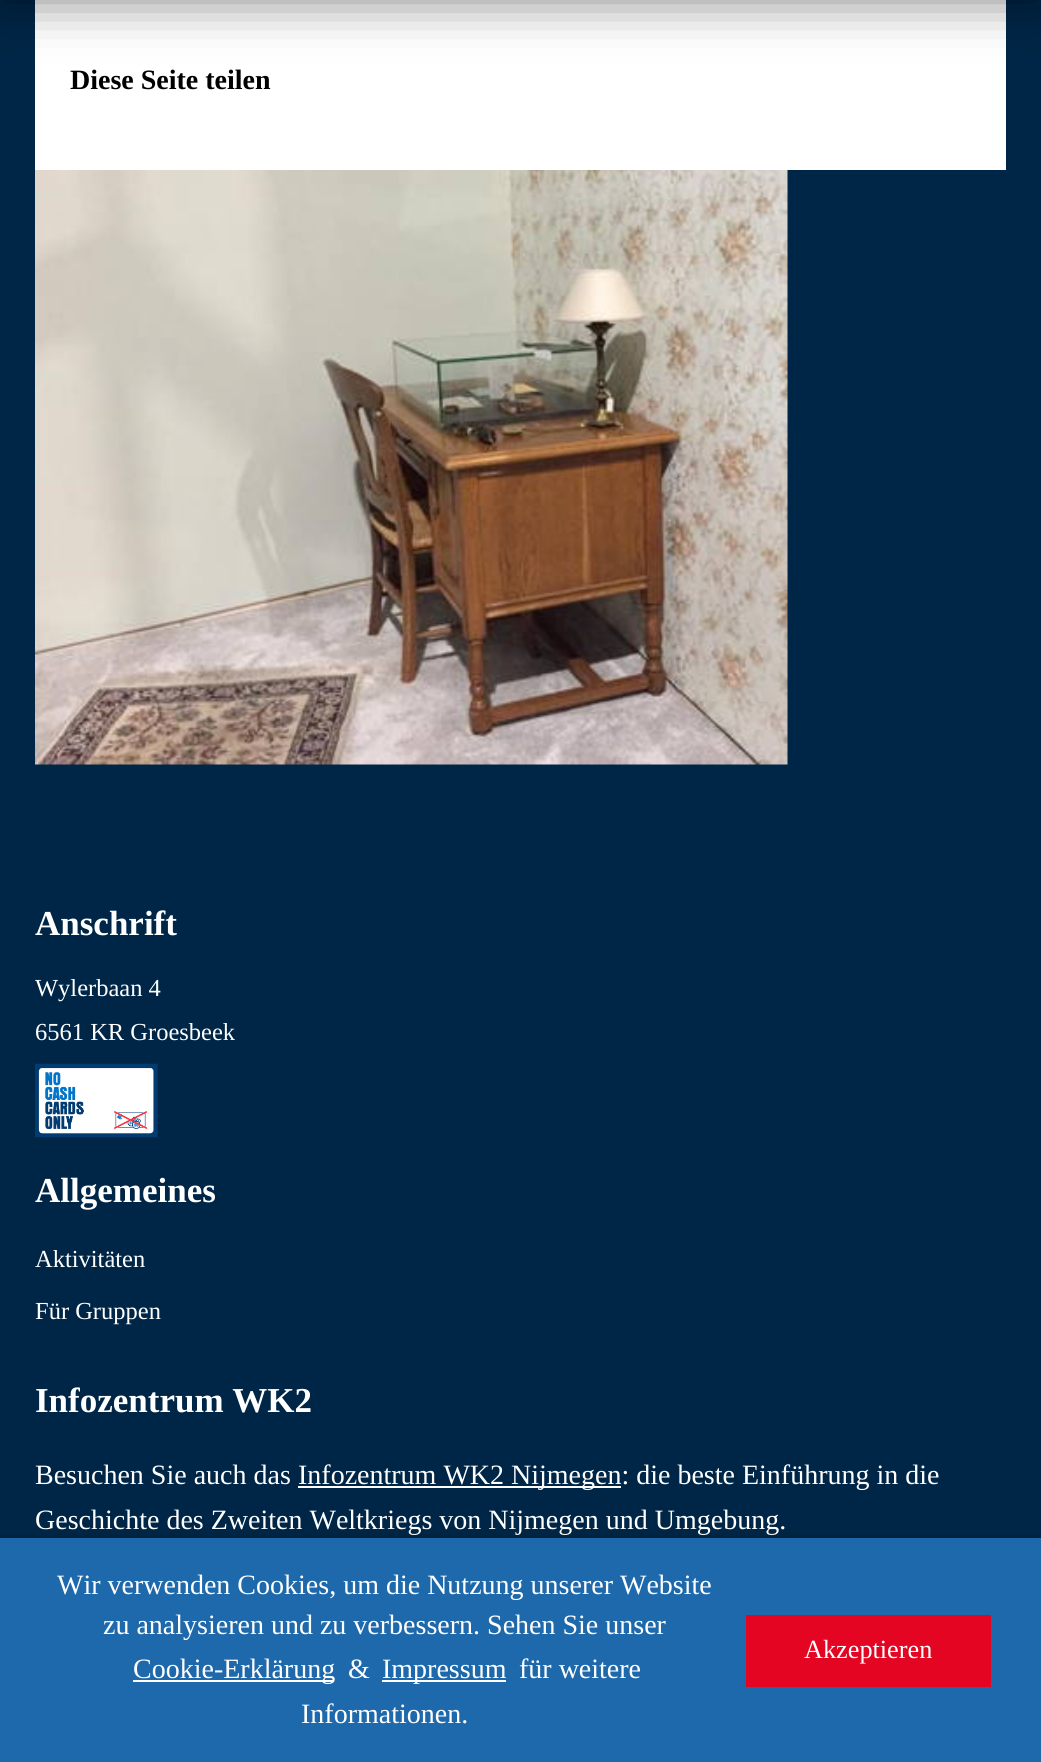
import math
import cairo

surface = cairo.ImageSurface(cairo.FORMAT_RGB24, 1041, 1762)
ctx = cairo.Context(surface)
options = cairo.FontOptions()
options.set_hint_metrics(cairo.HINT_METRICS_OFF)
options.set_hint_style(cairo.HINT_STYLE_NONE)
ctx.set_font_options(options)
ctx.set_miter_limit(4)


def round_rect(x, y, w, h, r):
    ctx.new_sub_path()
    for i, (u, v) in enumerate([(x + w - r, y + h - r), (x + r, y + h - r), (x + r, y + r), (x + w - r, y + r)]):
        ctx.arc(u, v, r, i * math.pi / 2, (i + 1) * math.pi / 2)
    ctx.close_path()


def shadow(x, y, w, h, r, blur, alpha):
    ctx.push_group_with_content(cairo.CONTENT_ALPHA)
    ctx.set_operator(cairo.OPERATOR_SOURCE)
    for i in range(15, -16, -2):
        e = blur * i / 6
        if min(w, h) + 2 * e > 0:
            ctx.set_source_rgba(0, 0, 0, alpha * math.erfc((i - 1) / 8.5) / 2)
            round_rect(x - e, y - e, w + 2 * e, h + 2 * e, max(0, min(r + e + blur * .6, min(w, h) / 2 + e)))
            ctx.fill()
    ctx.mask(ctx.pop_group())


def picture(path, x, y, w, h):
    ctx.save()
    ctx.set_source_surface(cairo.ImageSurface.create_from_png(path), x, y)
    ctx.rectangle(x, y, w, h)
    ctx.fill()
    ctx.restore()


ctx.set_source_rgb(0, 0.149, 0.278)
ctx.paint()
ctx.set_source_rgb(1, 1, 1)
ctx.rectangle(35, 0, 971, 170)
ctx.fill()
ctx.set_source_rgb(0, 0, 0)
shadow(0, -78, 1041, 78, 0, 26, 0.5)
ctx.select_font_face("Liberation Serif", cairo.FONT_SLANT_NORMAL, cairo.FONT_WEIGHT_BOLD)
ctx.set_font_size(28)
ctx.set_source_rgb(0, 0, 0)
ctx.move_to(70, 89)
ctx.show_text("Diese Seite teilen")
picture("img1.png", 35, 170, 753, 595)
ctx.set_font_size(35)
ctx.set_source_rgb(1, 1, 1)
ctx.move_to(35, 935)
ctx.show_text("Anschrift")
ctx.select_font_face("Liberation Serif")
ctx.set_font_size(24.5)
ctx.move_to(35, 996)
ctx.show_text("Wylerbaan 4")
ctx.move_to(35, 1040)
ctx.show_text("6561 KR Groesbeek")
picture("img2.png", 35, 1063, 123, 75)
ctx.select_font_face("Liberation Serif", cairo.FONT_SLANT_NORMAL, cairo.FONT_WEIGHT_BOLD)
ctx.set_font_size(35)
ctx.move_to(35, 1202)
ctx.show_text("Allgemeines")
ctx.select_font_face("Liberation Serif")
ctx.set_font_size(24.5)
ctx.move_to(35, 1267)
ctx.show_text("Aktivitäten")
ctx.move_to(35, 1319)
ctx.show_text("Für Gruppen")
ctx.select_font_face("Liberation Serif", cairo.FONT_SLANT_NORMAL, cairo.FONT_WEIGHT_BOLD)
ctx.set_font_size(35)
ctx.move_to(35, 1412)
ctx.show_text("Infozentrum WK2")
ctx.select_font_face("Liberation Serif")
ctx.set_font_size(28)
ctx.move_to(35, 1484)
ctx.show_text("Besuchen Sie auch das")
ctx.rectangle(298, 1486, 323, 2)
ctx.fill()
ctx.move_to(298, 1484)
ctx.show_text("Infozentrum WK2 Nijmegen: die beste Einführung in die")
ctx.move_to(35, 1529)
ctx.show_text("Geschichte des Zweiten Weltkriegs von Nijmegen und Umgebung.")
ctx.set_source_rgb(0, 0, 0)
shadow(0, 1538, 1041, 224, 0, 4.5, 0.25)
ctx.set_source_rgb(0.118, 0.412, 0.671)
ctx.rectangle(0, 1538, 1041, 224)
ctx.fill()
ctx.set_source_rgb(1, 1, 1)
ctx.move_to(57, 1594)
ctx.show_text("Wir verwenden Cookies, um die Nutzung unserer Website")
ctx.move_to(103, 1634)
ctx.show_text("zu analysieren und zu verbessern. Sehen Sie unser")
ctx.rectangle(133, 1680, 201, 2)
ctx.fill()
ctx.move_to(133, 1678)
ctx.show_text("Cookie-Erklärung")
ctx.move_to(348, 1678)
ctx.show_text("&")
ctx.rectangle(382, 1680, 124, 2)
ctx.fill()
ctx.move_to(382, 1678)
ctx.show_text("Impressum")
ctx.move_to(519, 1678)
ctx.show_text("für weitere")
ctx.move_to(301, 1723)
ctx.show_text("Informationen.")
ctx.set_source_rgb(0.89, 0.02, 0.129)
ctx.rectangle(746, 1615, 245, 72)
ctx.fill()
ctx.set_font_size(26.25)
ctx.set_source_rgb(1, 1, 1)
ctx.move_to(804, 1658)
ctx.show_text("Akzeptieren")
surface.write_to_png("page.png")
